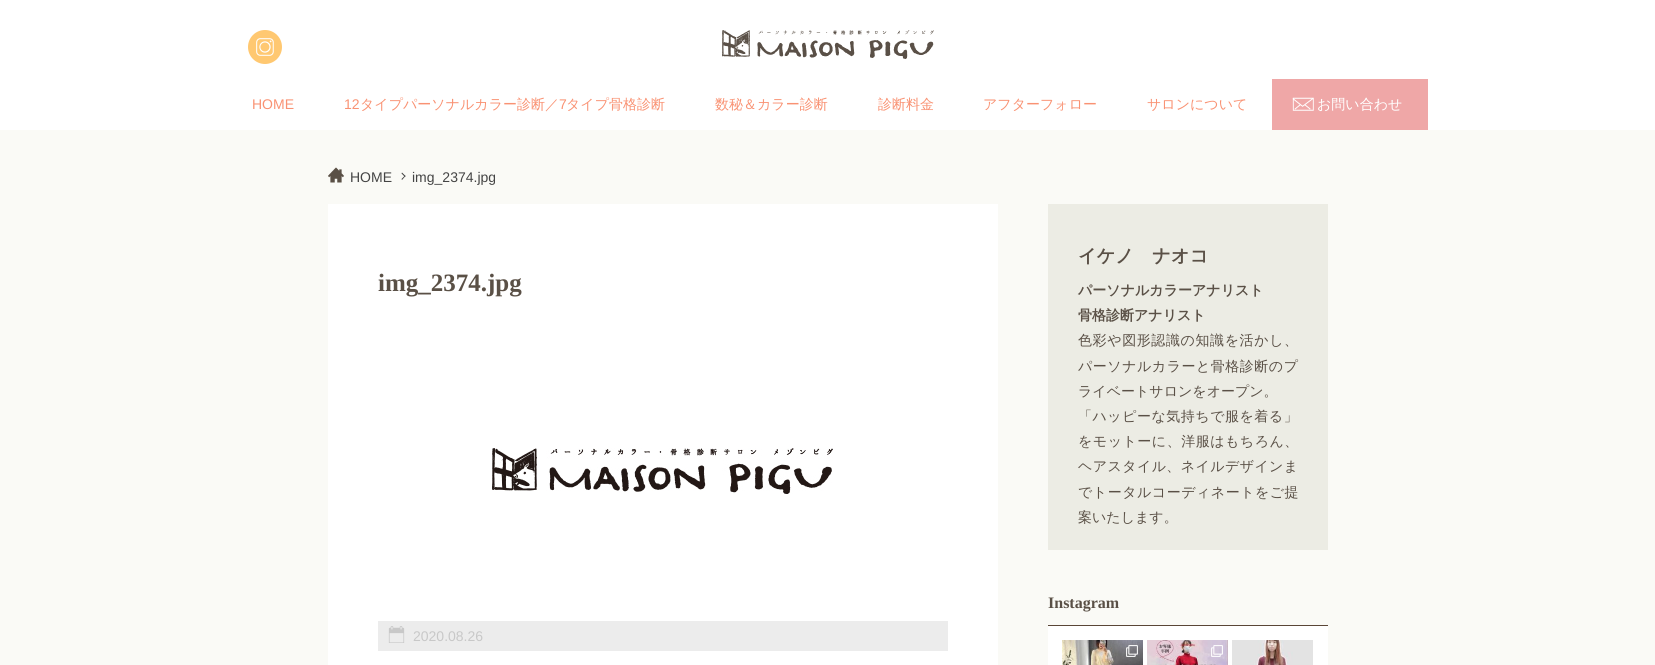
import math
import cairo

surface = cairo.ImageSurface(cairo.FORMAT_RGB24, 1655, 665)
ctx = cairo.Context(surface)
options = cairo.FontOptions()
options.set_hint_metrics(cairo.HINT_METRICS_OFF)
options.set_hint_style(cairo.HINT_STYLE_NONE)
ctx.set_font_options(options)
ctx.set_miter_limit(4)


def spaced_text(x, y, s, letter, word):
    ctx.move_to(x, y)
    for ch in s:
        ctx.show_text(ch)
        ctx.rel_move_to(letter + word * (ch == ' '), 0)


def picture(path, x, y, w, h):
    ctx.save()
    ctx.set_source_surface(cairo.ImageSurface.create_from_png(path), x, y)
    ctx.rectangle(x, y, w, h)
    ctx.fill()
    ctx.restore()


ctx.set_source_rgb(1, 1, 1)
ctx.paint()
ctx.set_source_rgb(1, 0.784, 0.443)
ctx.arc(265, 47, 17, 0, 2 * math.pi)
ctx.fill()
picture("img1.png", 256, 38, 18, 18)
picture("img2.png", 722, 30, 212, 29)
ctx.select_font_face("Liberation Sans")
ctx.set_font_size(14)
ctx.set_source_rgb(0.976, 0.573, 0.451)
ctx.move_to(252, 109)
ctx.show_text("HOME")
ctx.move_to(344, 109)
ctx.show_text("12")
ctx.select_font_face("WenQuanYi Zen Hei Medium")
ctx.move_to(360, 109)
ctx.show_text("タイプパーソナルカラー診断／")
ctx.select_font_face("Liberation Sans")
ctx.move_to(559, 109)
ctx.show_text("7")
ctx.select_font_face("WenQuanYi Zen Hei Medium")
ctx.move_to(566, 109)
ctx.show_text("タイプ骨格診断")
ctx.move_to(715, 109)
ctx.show_text("数秘＆カラー診断")
ctx.move_to(878, 109)
ctx.show_text("診断料金")
ctx.move_to(983, 109)
ctx.show_text("アフターフォロー")
ctx.move_to(1147, 109)
ctx.show_text("サロンについて")
ctx.set_source_rgb(0.937, 0.655, 0.655)
ctx.rectangle(1272, 79, 156, 51)
ctx.fill()
picture("img3.png", 1292, 97, 22, 14)
ctx.set_source_rgb(1, 1, 1)
ctx.move_to(1317, 109)
ctx.show_text("お問い合わせ")
ctx.set_source_rgb(0.98, 0.98, 0.961)
ctx.rectangle(0, 130, 1655, 535)
ctx.fill()
picture("img4.png", 328, 167, 16, 16)
ctx.select_font_face("Liberation Sans")
ctx.set_source_rgb(0.267, 0.267, 0.267)
ctx.move_to(350, 182)
ctx.show_text("HOME")
ctx.new_path()
ctx.move_to(402, 172.5)
ctx.line_to(405.5, 176)
ctx.line_to(405, 177)
ctx.line_to(401.5, 173.5)
ctx.close_path()
ctx.fill()
ctx.new_path()
ctx.move_to(405, 175.5)
ctx.line_to(405.5, 176)
ctx.line_to(402, 180)
ctx.line_to(401.5, 179)
ctx.close_path()
ctx.fill()
ctx.move_to(412, 182)
ctx.show_text("img_2374.jpg")
ctx.set_source_rgb(1, 1, 1)
ctx.rectangle(328, 204, 670, 461)
ctx.fill()
ctx.select_font_face("Liberation Serif", cairo.FONT_SLANT_NORMAL, cairo.FONT_WEIGHT_BOLD)
ctx.set_font_size(25)
ctx.set_source_rgb(0.353, 0.314, 0.275)
ctx.move_to(378, 291)
ctx.show_text("img_2374.jpg")
picture("img5.png", 492, 448, 341, 46)
ctx.set_source_rgb(0.922, 0.922, 0.922)
ctx.rectangle(378, 621, 570, 30)
ctx.fill()
picture("img6.png", 388, 626, 17, 17)
ctx.select_font_face("Liberation Sans")
ctx.set_font_size(14)
ctx.set_source_rgb(0.784, 0.784, 0.784)
ctx.move_to(413, 641)
ctx.show_text("2020.08.26")
ctx.set_source_rgb(0.922, 0.922, 0.894)
ctx.rectangle(1048, 204, 280, 346)
ctx.fill()
ctx.select_font_face("WenQuanYi Zen Hei", cairo.FONT_SLANT_NORMAL, cairo.FONT_WEIGHT_BOLD)
ctx.set_font_size(18.25)
ctx.set_source_rgb(0.353, 0.314, 0.275)
ctx.move_to(1078, 262)
ctx.show_text("イケノ　ナオコ")
ctx.set_font_size(14)
ctx.move_to(1078, 295)
ctx.show_text("パーソナルカラーアナリスト")
ctx.move_to(1078, 320)
ctx.show_text("骨格診断アナリスト")
ctx.select_font_face("WenQuanYi Zen Hei Medium")
spaced_text(1078, 345, "色彩や図形認識の知識を活かし、", 0.6, 0)
spaced_text(1078, 371, "パーソナルカラーと骨格診断のプ", 0.5, 0)
ctx.move_to(1078, 396)
ctx.show_text("ライベートサロンをオープン。")
spaced_text(1078, 421, "「ハッピーな気持ちで服を着る」", 0.5, 0)
spaced_text(1078, 446, "をモットーに、洋服はもちろん、", 0.5, 0)
spaced_text(1078, 471, "ヘアスタイル、ネイルデザインま", 0.4, 0)
spaced_text(1078, 497, "でトータルコーディネートをご提", 0.5, 0)
ctx.move_to(1078, 522)
ctx.show_text("案いたします。")
ctx.set_source_rgb(0.353, 0.275, 0.216)
ctx.rectangle(1048, 625, 280, 1)
ctx.fill()
ctx.select_font_face("Liberation Serif", cairo.FONT_SLANT_NORMAL, cairo.FONT_WEIGHT_BOLD)
ctx.set_font_size(16)
ctx.set_source_rgb(0.353, 0.314, 0.275)
ctx.move_to(1048, 608)
ctx.show_text("Instagram")
ctx.set_source_rgb(1, 1, 1)
ctx.rectangle(1048, 626, 280, 39)
ctx.fill()
picture("img7.png", 1062, 640, 81, 25)
picture("img8.png", 1126, 645, 12, 12)
picture("img9.png", 1147, 640, 81, 25)
picture("img10.png", 1211, 645, 12, 12)
picture("img11.png", 1232, 640, 81, 25)
surface.write_to_png("page.png")
